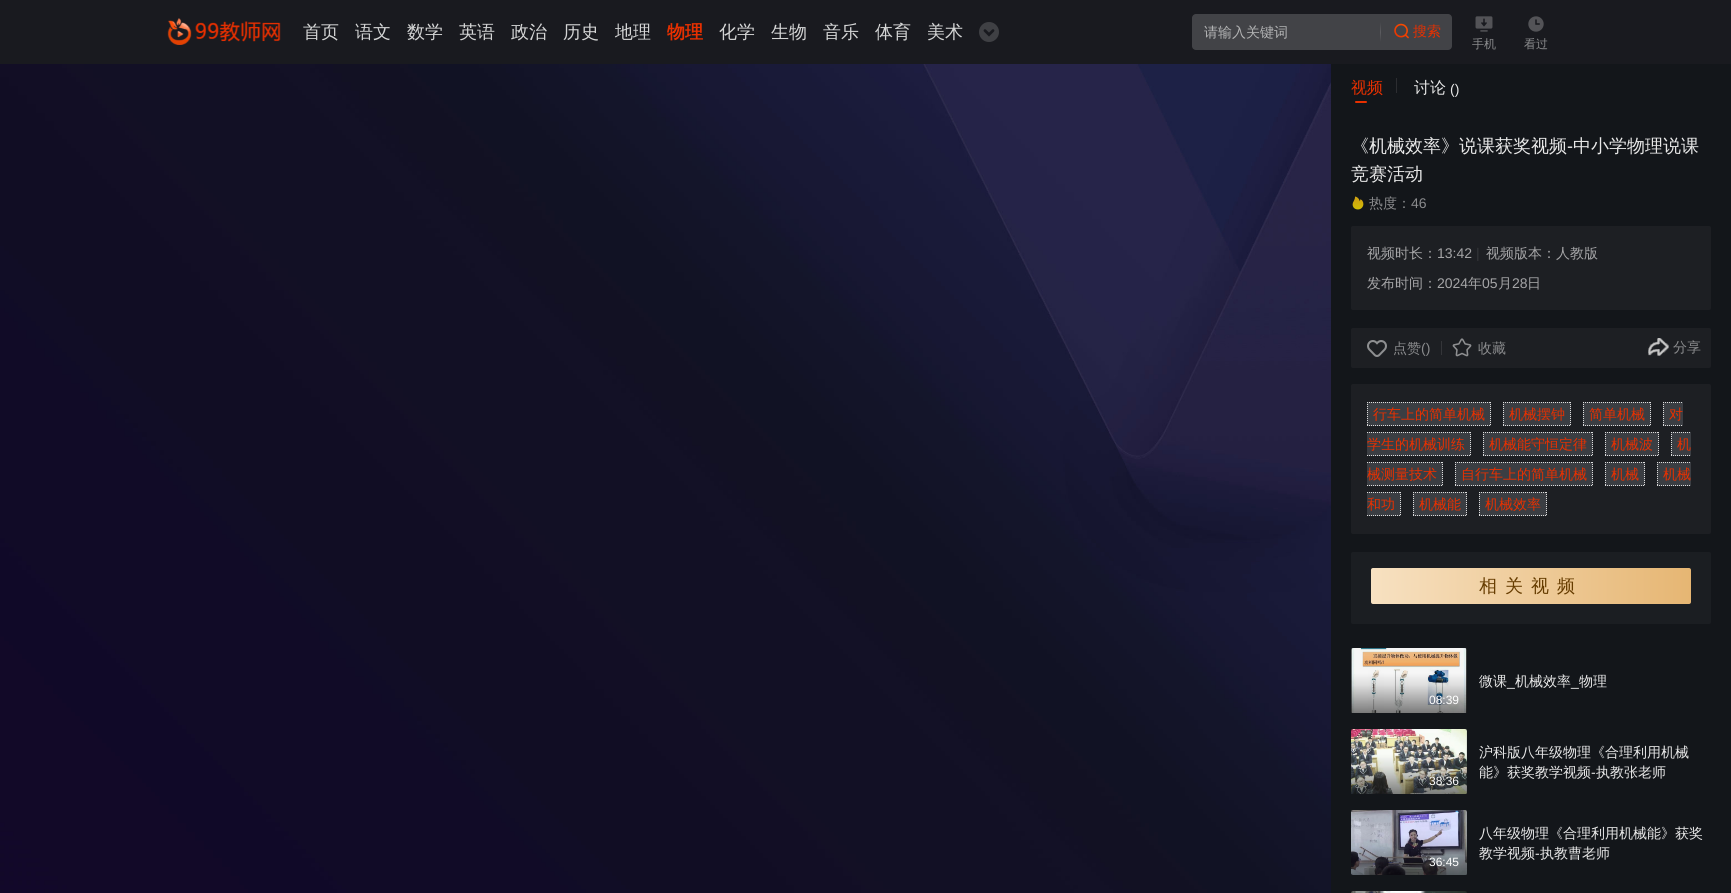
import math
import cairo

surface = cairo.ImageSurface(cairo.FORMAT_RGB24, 1731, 893)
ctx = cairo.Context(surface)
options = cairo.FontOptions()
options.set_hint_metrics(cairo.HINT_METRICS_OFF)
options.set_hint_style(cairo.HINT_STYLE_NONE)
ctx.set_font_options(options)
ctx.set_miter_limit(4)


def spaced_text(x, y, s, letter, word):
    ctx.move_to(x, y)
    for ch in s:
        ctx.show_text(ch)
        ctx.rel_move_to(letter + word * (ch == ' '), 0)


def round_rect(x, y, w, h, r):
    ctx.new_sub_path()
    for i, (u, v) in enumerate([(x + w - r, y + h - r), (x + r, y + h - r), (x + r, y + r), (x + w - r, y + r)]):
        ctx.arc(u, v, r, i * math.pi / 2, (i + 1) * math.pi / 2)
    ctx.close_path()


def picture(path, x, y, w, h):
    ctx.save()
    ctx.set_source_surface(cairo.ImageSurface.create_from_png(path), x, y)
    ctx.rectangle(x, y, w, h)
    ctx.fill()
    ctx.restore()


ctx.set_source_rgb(0.078, 0.086, 0.102)
ctx.paint()
ctx.set_source_rgb(0.098, 0.102, 0.122)
ctx.rectangle(0, 0, 1731, 64)
ctx.fill()
picture("img1.png", 167, 18, 114, 27)
ctx.select_font_face("WenQuanYi Zen Hei Medium")
ctx.set_font_size(18)
ctx.set_source_rgb(0.831, 0.835, 0.835)
ctx.move_to(303, 38)
ctx.show_text("首页")
ctx.move_to(355, 38)
ctx.show_text("语文")
ctx.move_to(407, 38)
ctx.show_text("数学")
ctx.move_to(459, 38)
ctx.show_text("英语")
ctx.move_to(511, 38)
ctx.show_text("政治")
ctx.move_to(563, 38)
ctx.show_text("历史")
ctx.move_to(615, 38)
ctx.show_text("地理")
ctx.select_font_face("WenQuanYi Zen Hei", cairo.FONT_SLANT_NORMAL, cairo.FONT_WEIGHT_BOLD)
ctx.set_source_rgb(0.91, 0.188, 0)
ctx.move_to(667, 38)
ctx.show_text("物理")
ctx.select_font_face("WenQuanYi Zen Hei Medium")
ctx.set_source_rgb(0.831, 0.835, 0.835)
ctx.move_to(719, 38)
ctx.show_text("化学")
ctx.move_to(771, 38)
ctx.show_text("生物")
ctx.move_to(823, 38)
ctx.show_text("音乐")
ctx.move_to(875, 38)
ctx.show_text("体育")
ctx.move_to(927, 38)
ctx.show_text("美术")
picture("img2.png", 979, 22, 20, 20)
ctx.set_source_rgb(0.259, 0.263, 0.278)
round_rect(1192, 14, 260, 36, 4)
ctx.fill()
ctx.set_font_size(14)
ctx.set_source_rgb(0.702, 0.706, 0.71)
ctx.move_to(1204, 37)
ctx.show_text("请输入关键词")
gradient = cairo.LinearGradient(1381, 22, 1381, 42)
gradient.add_color_stop_rgba(0, 0.259, 0.263, 0.278, 1)
gradient.add_color_stop_rgba(0.51, 0.361, 0.361, 0.376, 1)
gradient.add_color_stop_rgba(1, 0.259, 0.263, 0.278, 1)
ctx.set_source(gradient)
ctx.rectangle(1380, 22, 1, 20)
ctx.fill()
picture("img3.png", 1394, 23, 15, 16)
ctx.set_source_rgb(0.91, 0.188, 0)
ctx.move_to(1413, 36)
ctx.show_text("搜索")
picture("img4.png", 1475, 16, 18, 16)
ctx.set_font_size(12)
ctx.set_source_rgb(0.541, 0.545, 0.553)
ctx.move_to(1472, 48)
ctx.show_text("手机")
picture("img5.png", 1528, 16, 16, 16)
ctx.move_to(1524, 48)
ctx.show_text("看过")
picture("img6.png", 0, 64, 1331, 829)
ctx.set_font_size(16)
ctx.set_source_rgb(0.91, 0.188, 0)
ctx.move_to(1351, 93)
ctx.show_text("视频")
ctx.set_source_rgb(0.173, 0.176, 0.192)
ctx.rectangle(1396, 78, 1, 15)
ctx.fill()
ctx.set_source_rgb(0.91, 0.188, 0)
round_rect(1355, 101, 12, 2, 1)
ctx.fill()
ctx.set_source_rgb(0.91, 0.91, 0.91)
ctx.move_to(1414, 93)
ctx.show_text("讨论")
ctx.select_font_face("Liberation Sans")
ctx.set_font_size(14)
ctx.move_to(1450, 94)
ctx.show_text("()")
ctx.select_font_face("WenQuanYi Zen Hei Medium")
ctx.set_font_size(18)
ctx.move_to(1351, 152)
ctx.show_text("《机械效率》说课获奖视频")
ctx.select_font_face("Liberation Sans")
ctx.move_to(1567, 152)
ctx.show_text("-")
ctx.select_font_face("WenQuanYi Zen Hei Medium")
ctx.move_to(1573, 152)
ctx.show_text("中小学物理说课")
ctx.move_to(1351, 180)
ctx.show_text("竞赛活动")
picture("img7.png", 1352, 196, 12, 14)
ctx.set_font_size(14)
ctx.set_source_rgb(0.541, 0.545, 0.553)
ctx.move_to(1369, 208)
ctx.show_text("热度：")
ctx.select_font_face("Liberation Sans")
ctx.move_to(1411, 208)
ctx.show_text("46")
ctx.set_source_rgb(0.114, 0.122, 0.137)
round_rect(1351, 226, 360, 84, 2)
ctx.fill()
ctx.select_font_face("WenQuanYi Zen Hei Medium")
ctx.set_source_rgb(0.647, 0.647, 0.655)
ctx.move_to(1367, 258)
ctx.show_text("视频时长：")
ctx.select_font_face("Liberation Sans")
ctx.move_to(1437, 258)
ctx.show_text("13:42")
ctx.set_source_rgb(0.204, 0.208, 0.224)
ctx.move_to(1476, 258)
ctx.show_text("|")
ctx.select_font_face("WenQuanYi Zen Hei Medium")
ctx.set_source_rgb(0.647, 0.647, 0.655)
ctx.move_to(1486, 258)
ctx.show_text("视频版本：人教版")
ctx.move_to(1367, 288)
ctx.show_text("发布时间：")
ctx.select_font_face("Liberation Sans")
ctx.move_to(1437, 288)
ctx.show_text("2024")
ctx.select_font_face("WenQuanYi Zen Hei Medium")
ctx.move_to(1468, 288)
ctx.show_text("年")
ctx.select_font_face("Liberation Sans")
ctx.move_to(1482, 288)
ctx.show_text("05")
ctx.select_font_face("WenQuanYi Zen Hei Medium")
ctx.move_to(1498, 288)
ctx.show_text("月")
ctx.select_font_face("Liberation Sans")
ctx.move_to(1512, 288)
ctx.show_text("28")
ctx.select_font_face("WenQuanYi Zen Hei Medium")
ctx.move_to(1527, 288)
ctx.show_text("日")
ctx.set_source_rgb(0.114, 0.122, 0.137)
round_rect(1351, 328, 360, 40, 2)
ctx.fill()
picture("img8.png", 1367, 340, 20, 17)
ctx.set_source_rgb(0.541, 0.545, 0.553)
ctx.move_to(1393, 353)
ctx.show_text("点赞")
ctx.select_font_face("Liberation Sans")
ctx.move_to(1421, 353)
ctx.show_text("()")
ctx.set_source_rgb(0.204, 0.208, 0.224)
ctx.rectangle(1441, 341, 1, 14)
ctx.fill()
picture("img9.png", 1452, 338, 20, 19)
ctx.select_font_face("WenQuanYi Zen Hei Medium")
ctx.set_source_rgb(0.541, 0.545, 0.553)
ctx.move_to(1478, 353)
ctx.show_text("收藏")
picture("img10.png", 1648, 338, 21, 18)
ctx.move_to(1673, 352)
ctx.show_text("分享")
ctx.set_source_rgb(0.114, 0.122, 0.137)
round_rect(1351, 384, 360, 150, 2)
ctx.fill()
ctx.set_source_rgb(0.231, 0.243, 0.263)
ctx.rectangle(1367, 402, 124, 24)
ctx.fill()
ctx.set_source_rgb(0.91, 0.188, 0)
ctx.move_to(1373, 419)
ctx.show_text("行车上的简单机械")
ctx.new_path()
ctx.move_to(1367, 402.5)
ctx.line_to(1491, 402.5)
ctx.set_source_rgb(0.863, 0.863, 0.863)
ctx.set_line_width(1)
ctx.set_dash([1, 1])
ctx.stroke()
ctx.new_path()
ctx.move_to(1490.5, 402)
ctx.line_to(1490.5, 426)
ctx.stroke()
ctx.new_path()
ctx.move_to(1367, 425.5)
ctx.line_to(1491, 425.5)
ctx.stroke()
ctx.new_path()
ctx.move_to(1367.5, 402)
ctx.line_to(1367.5, 426)
ctx.stroke()
ctx.set_source_rgb(0.231, 0.243, 0.263)
ctx.rectangle(1503, 402, 68, 24)
ctx.fill()
ctx.set_source_rgb(0.91, 0.188, 0)
ctx.move_to(1509, 419)
ctx.show_text("机械摆钟")
ctx.new_path()
ctx.move_to(1503, 402.5)
ctx.line_to(1571, 402.5)
ctx.set_source_rgb(0.863, 0.863, 0.863)
ctx.stroke()
ctx.new_path()
ctx.move_to(1570.5, 402)
ctx.line_to(1570.5, 426)
ctx.stroke()
ctx.new_path()
ctx.move_to(1503, 425.5)
ctx.line_to(1571, 425.5)
ctx.stroke()
ctx.new_path()
ctx.move_to(1503.5, 402)
ctx.line_to(1503.5, 426)
ctx.stroke()
ctx.set_source_rgb(0.231, 0.243, 0.263)
ctx.rectangle(1583, 402, 68, 24)
ctx.fill()
ctx.set_source_rgb(0.91, 0.188, 0)
ctx.move_to(1589, 419)
ctx.show_text("简单机械")
ctx.new_path()
ctx.move_to(1583, 402.5)
ctx.line_to(1651, 402.5)
ctx.set_source_rgb(0.863, 0.863, 0.863)
ctx.stroke()
ctx.new_path()
ctx.move_to(1650.5, 402)
ctx.line_to(1650.5, 426)
ctx.stroke()
ctx.new_path()
ctx.move_to(1583, 425.5)
ctx.line_to(1651, 425.5)
ctx.stroke()
ctx.new_path()
ctx.move_to(1583.5, 402)
ctx.line_to(1583.5, 426)
ctx.stroke()
ctx.set_source_rgb(0.231, 0.243, 0.263)
ctx.rectangle(1663, 402, 20, 24)
ctx.fill()
ctx.new_path()
ctx.move_to(1663, 402.5)
ctx.line_to(1683, 402.5)
ctx.move_to(1663, 425.5)
ctx.line_to(1683, 425.5)
ctx.move_to(1663.5, 402)
ctx.line_to(1663.5, 426)
ctx.set_source_rgb(0.863, 0.863, 0.863)
ctx.stroke()
ctx.set_source_rgb(0.91, 0.188, 0)
ctx.move_to(1669, 419)
ctx.show_text("对")
ctx.set_source_rgb(0.231, 0.243, 0.263)
ctx.rectangle(1367, 432, 104, 24)
ctx.fill()
ctx.set_source_rgb(0.91, 0.188, 0)
ctx.move_to(1367, 449)
ctx.show_text("学生的机械训练")
ctx.new_path()
ctx.move_to(1367, 432.5)
ctx.line_to(1471, 432.5)
ctx.set_source_rgb(0.863, 0.863, 0.863)
ctx.stroke()
ctx.new_path()
ctx.move_to(1470.5, 432)
ctx.line_to(1470.5, 456)
ctx.stroke()
ctx.new_path()
ctx.move_to(1367, 455.5)
ctx.line_to(1471, 455.5)
ctx.stroke()
ctx.set_source_rgb(0.231, 0.243, 0.263)
ctx.rectangle(1483, 432, 110, 24)
ctx.fill()
ctx.set_source_rgb(0.91, 0.188, 0)
ctx.move_to(1489, 449)
ctx.show_text("机械能守恒定律")
ctx.new_path()
ctx.move_to(1483, 432.5)
ctx.line_to(1593, 432.5)
ctx.set_source_rgb(0.863, 0.863, 0.863)
ctx.stroke()
ctx.new_path()
ctx.move_to(1592.5, 432)
ctx.line_to(1592.5, 456)
ctx.stroke()
ctx.new_path()
ctx.move_to(1483, 455.5)
ctx.line_to(1593, 455.5)
ctx.stroke()
ctx.new_path()
ctx.move_to(1483.5, 432)
ctx.line_to(1483.5, 456)
ctx.stroke()
ctx.set_source_rgb(0.231, 0.243, 0.263)
ctx.rectangle(1605, 432, 54, 24)
ctx.fill()
ctx.new_path()
ctx.move_to(1605, 432.5)
ctx.line_to(1659, 432.5)
ctx.move_to(1658.5, 432)
ctx.line_to(1658.5, 456)
ctx.move_to(1605, 455.5)
ctx.line_to(1659, 455.5)
ctx.move_to(1605.5, 432)
ctx.line_to(1605.5, 456)
ctx.set_source_rgb(0.863, 0.863, 0.863)
ctx.stroke()
ctx.set_source_rgb(0.91, 0.188, 0)
ctx.move_to(1611, 449)
ctx.show_text("机械波")
ctx.set_source_rgb(0.231, 0.243, 0.263)
ctx.rectangle(1671, 432, 20, 24)
ctx.fill()
ctx.new_path()
ctx.move_to(1671, 432.5)
ctx.line_to(1691, 432.5)
ctx.move_to(1671, 455.5)
ctx.line_to(1691, 455.5)
ctx.move_to(1671.5, 432)
ctx.line_to(1671.5, 456)
ctx.set_source_rgb(0.863, 0.863, 0.863)
ctx.stroke()
ctx.set_source_rgb(0.91, 0.188, 0)
ctx.move_to(1677, 449)
ctx.show_text("机")
ctx.set_source_rgb(0.231, 0.243, 0.263)
ctx.rectangle(1367, 462, 76, 24)
ctx.fill()
ctx.set_source_rgb(0.91, 0.188, 0)
ctx.move_to(1367, 479)
ctx.show_text("械测量技术")
ctx.new_path()
ctx.move_to(1367, 462.5)
ctx.line_to(1443, 462.5)
ctx.set_source_rgb(0.863, 0.863, 0.863)
ctx.stroke()
ctx.new_path()
ctx.move_to(1442.5, 462)
ctx.line_to(1442.5, 486)
ctx.stroke()
ctx.new_path()
ctx.move_to(1367, 485.5)
ctx.line_to(1443, 485.5)
ctx.stroke()
ctx.set_source_rgb(0.231, 0.243, 0.263)
ctx.rectangle(1455, 462, 138, 24)
ctx.fill()
ctx.set_source_rgb(0.91, 0.188, 0)
ctx.move_to(1461, 479)
ctx.show_text("自行车上的简单机械")
ctx.new_path()
ctx.move_to(1455, 462.5)
ctx.line_to(1593, 462.5)
ctx.set_source_rgb(0.863, 0.863, 0.863)
ctx.stroke()
ctx.new_path()
ctx.move_to(1592.5, 462)
ctx.line_to(1592.5, 486)
ctx.stroke()
ctx.new_path()
ctx.move_to(1455, 485.5)
ctx.line_to(1593, 485.5)
ctx.stroke()
ctx.new_path()
ctx.move_to(1455.5, 462)
ctx.line_to(1455.5, 486)
ctx.stroke()
ctx.set_source_rgb(0.231, 0.243, 0.263)
ctx.rectangle(1605, 462, 40, 24)
ctx.fill()
ctx.new_path()
ctx.move_to(1605, 462.5)
ctx.line_to(1645, 462.5)
ctx.move_to(1644.5, 462)
ctx.line_to(1644.5, 486)
ctx.move_to(1605, 485.5)
ctx.line_to(1645, 485.5)
ctx.move_to(1605.5, 462)
ctx.line_to(1605.5, 486)
ctx.set_source_rgb(0.863, 0.863, 0.863)
ctx.stroke()
ctx.set_source_rgb(0.91, 0.188, 0)
ctx.move_to(1611, 479)
ctx.show_text("机械")
ctx.set_source_rgb(0.231, 0.243, 0.263)
ctx.rectangle(1657, 462, 34, 24)
ctx.fill()
ctx.new_path()
ctx.move_to(1657, 462.5)
ctx.line_to(1691, 462.5)
ctx.move_to(1657, 485.5)
ctx.line_to(1691, 485.5)
ctx.move_to(1657.5, 462)
ctx.line_to(1657.5, 486)
ctx.set_source_rgb(0.863, 0.863, 0.863)
ctx.stroke()
ctx.set_source_rgb(0.91, 0.188, 0)
ctx.move_to(1663, 479)
ctx.show_text("机械")
ctx.set_source_rgb(0.231, 0.243, 0.263)
ctx.rectangle(1367, 492, 34, 24)
ctx.fill()
ctx.new_path()
ctx.move_to(1367, 492.5)
ctx.line_to(1401, 492.5)
ctx.move_to(1400.5, 492)
ctx.line_to(1400.5, 516)
ctx.move_to(1367, 515.5)
ctx.line_to(1401, 515.5)
ctx.set_source_rgb(0.863, 0.863, 0.863)
ctx.stroke()
ctx.set_source_rgb(0.91, 0.188, 0)
ctx.move_to(1367, 509)
ctx.show_text("和功")
ctx.set_source_rgb(0.231, 0.243, 0.263)
ctx.rectangle(1413, 492, 54, 24)
ctx.fill()
ctx.new_path()
ctx.move_to(1413, 492.5)
ctx.line_to(1467, 492.5)
ctx.move_to(1466.5, 492)
ctx.line_to(1466.5, 516)
ctx.move_to(1413, 515.5)
ctx.line_to(1467, 515.5)
ctx.move_to(1413.5, 492)
ctx.line_to(1413.5, 516)
ctx.set_source_rgb(0.863, 0.863, 0.863)
ctx.stroke()
ctx.set_source_rgb(0.91, 0.188, 0)
ctx.move_to(1419, 509)
ctx.show_text("机械能")
ctx.set_source_rgb(0.231, 0.243, 0.263)
ctx.rectangle(1479, 492, 68, 24)
ctx.fill()
ctx.set_source_rgb(0.91, 0.188, 0)
ctx.move_to(1485, 509)
ctx.show_text("机械效率")
ctx.new_path()
ctx.move_to(1479, 492.5)
ctx.line_to(1547, 492.5)
ctx.set_source_rgb(0.863, 0.863, 0.863)
ctx.stroke()
ctx.new_path()
ctx.move_to(1546.5, 492)
ctx.line_to(1546.5, 516)
ctx.stroke()
ctx.new_path()
ctx.move_to(1479, 515.5)
ctx.line_to(1547, 515.5)
ctx.stroke()
ctx.new_path()
ctx.move_to(1479.5, 492)
ctx.line_to(1479.5, 516)
ctx.stroke()
ctx.set_source_rgb(0.106, 0.118, 0.133)
round_rect(1351, 552, 360, 72, 2)
ctx.fill()
gradient = cairo.LinearGradient(1371, 586, 1691, 586)
gradient.add_color_stop_rgba(0, 0.969, 0.882, 0.757, 1)
gradient.add_color_stop_rgba(1, 0.902, 0.714, 0.451, 1)
ctx.set_source(gradient)
round_rect(1371, 568, 320, 36, 2)
ctx.fill()
ctx.set_font_size(18)
ctx.set_source_rgb(0.4, 0.235, 0)
spaced_text(1479, 592, "相关视频", 8, 0)
ctx.set_font_size(14)
ctx.set_source_rgb(0.91, 0.91, 0.91)
ctx.move_to(1479, 686)
ctx.show_text("微课")
ctx.select_font_face("Liberation Sans")
ctx.move_to(1507, 686)
ctx.show_text("_")
ctx.select_font_face("WenQuanYi Zen Hei Medium")
ctx.move_to(1515, 686)
ctx.show_text("机械效率")
ctx.select_font_face("Liberation Sans")
ctx.move_to(1571, 686)
ctx.show_text("_")
ctx.select_font_face("WenQuanYi Zen Hei Medium")
ctx.move_to(1579, 686)
ctx.show_text("物理")
picture("img11.png", 1351, 648, 116, 65)
gradient = cairo.LinearGradient(1409, 673, 1409, 713)
gradient.add_color_stop_rgba(0, 0, 0, 0, 0)
gradient.add_color_stop_rgba(0.3, 0, 0, 0, 0.1)
gradient.add_color_stop_rgba(1, 0, 0, 0, 0.5)
ctx.set_source(gradient)
ctx.new_path()
ctx.move_to(1351, 673)
ctx.line_to(1467, 673)
ctx.line_to(1467, 711)
ctx.curve_to(1467, 712, 1466, 713, 1465, 713)
ctx.line_to(1353, 713)
ctx.curve_to(1352, 713, 1351, 712, 1351, 711)
ctx.close_path()
ctx.fill()
ctx.select_font_face("Liberation Sans")
ctx.set_font_size(12)
ctx.set_source_rgb(1, 1, 1)
ctx.move_to(1429, 704)
ctx.show_text("08:39")
ctx.select_font_face("WenQuanYi Zen Hei Medium")
ctx.set_font_size(14)
ctx.set_source_rgb(0.91, 0.91, 0.91)
ctx.move_to(1479, 757)
ctx.show_text("沪科版八年级物理《合理利用机械")
ctx.move_to(1479, 777)
ctx.show_text("能》获奖教学视频")
ctx.select_font_face("Liberation Sans")
ctx.move_to(1591, 777)
ctx.show_text("-")
ctx.select_font_face("WenQuanYi Zen Hei Medium")
ctx.move_to(1596, 777)
ctx.show_text("执教张老师")
picture("img12.png", 1351, 729, 116, 65)
gradient = cairo.LinearGradient(1409, 754, 1409, 794)
gradient.add_color_stop_rgba(0, 0, 0, 0, 0)
gradient.add_color_stop_rgba(0.3, 0, 0, 0, 0.1)
gradient.add_color_stop_rgba(1, 0, 0, 0, 0.5)
ctx.set_source(gradient)
ctx.new_path()
ctx.move_to(1351, 754)
ctx.line_to(1467, 754)
ctx.line_to(1467, 792)
ctx.curve_to(1467, 793, 1466, 794, 1465, 794)
ctx.line_to(1353, 794)
ctx.curve_to(1352, 794, 1351, 793, 1351, 792)
ctx.close_path()
ctx.fill()
ctx.select_font_face("Liberation Sans")
ctx.set_font_size(12)
ctx.set_source_rgb(1, 1, 1)
ctx.move_to(1429, 785)
ctx.show_text("38:36")
ctx.select_font_face("WenQuanYi Zen Hei Medium")
ctx.set_font_size(14)
ctx.set_source_rgb(0.91, 0.91, 0.91)
ctx.move_to(1479, 838)
ctx.show_text("八年级物理《合理利用机械能》获奖")
ctx.move_to(1479, 858)
ctx.show_text("教学视频")
ctx.select_font_face("Liberation Sans")
ctx.move_to(1535, 858)
ctx.show_text("-")
ctx.select_font_face("WenQuanYi Zen Hei Medium")
ctx.move_to(1540, 858)
ctx.show_text("执教曹老师")
picture("img13.png", 1351, 810, 116, 65)
gradient = cairo.LinearGradient(1409, 835, 1409, 875)
gradient.add_color_stop_rgba(0, 0, 0, 0, 0)
gradient.add_color_stop_rgba(0.3, 0, 0, 0, 0.1)
gradient.add_color_stop_rgba(1, 0, 0, 0, 0.5)
ctx.set_source(gradient)
ctx.new_path()
ctx.move_to(1351, 835)
ctx.line_to(1467, 835)
ctx.line_to(1467, 873)
ctx.curve_to(1467, 874, 1466, 875, 1465, 875)
ctx.line_to(1353, 875)
ctx.curve_to(1352, 875, 1351, 874, 1351, 873)
ctx.close_path()
ctx.fill()
ctx.select_font_face("Liberation Sans")
ctx.set_font_size(12)
ctx.set_source_rgb(1, 1, 1)
ctx.move_to(1429, 866)
ctx.show_text("36:45")
picture("img14.png", 1351, 891, 116, 2)
surface.write_to_png("page.png")
